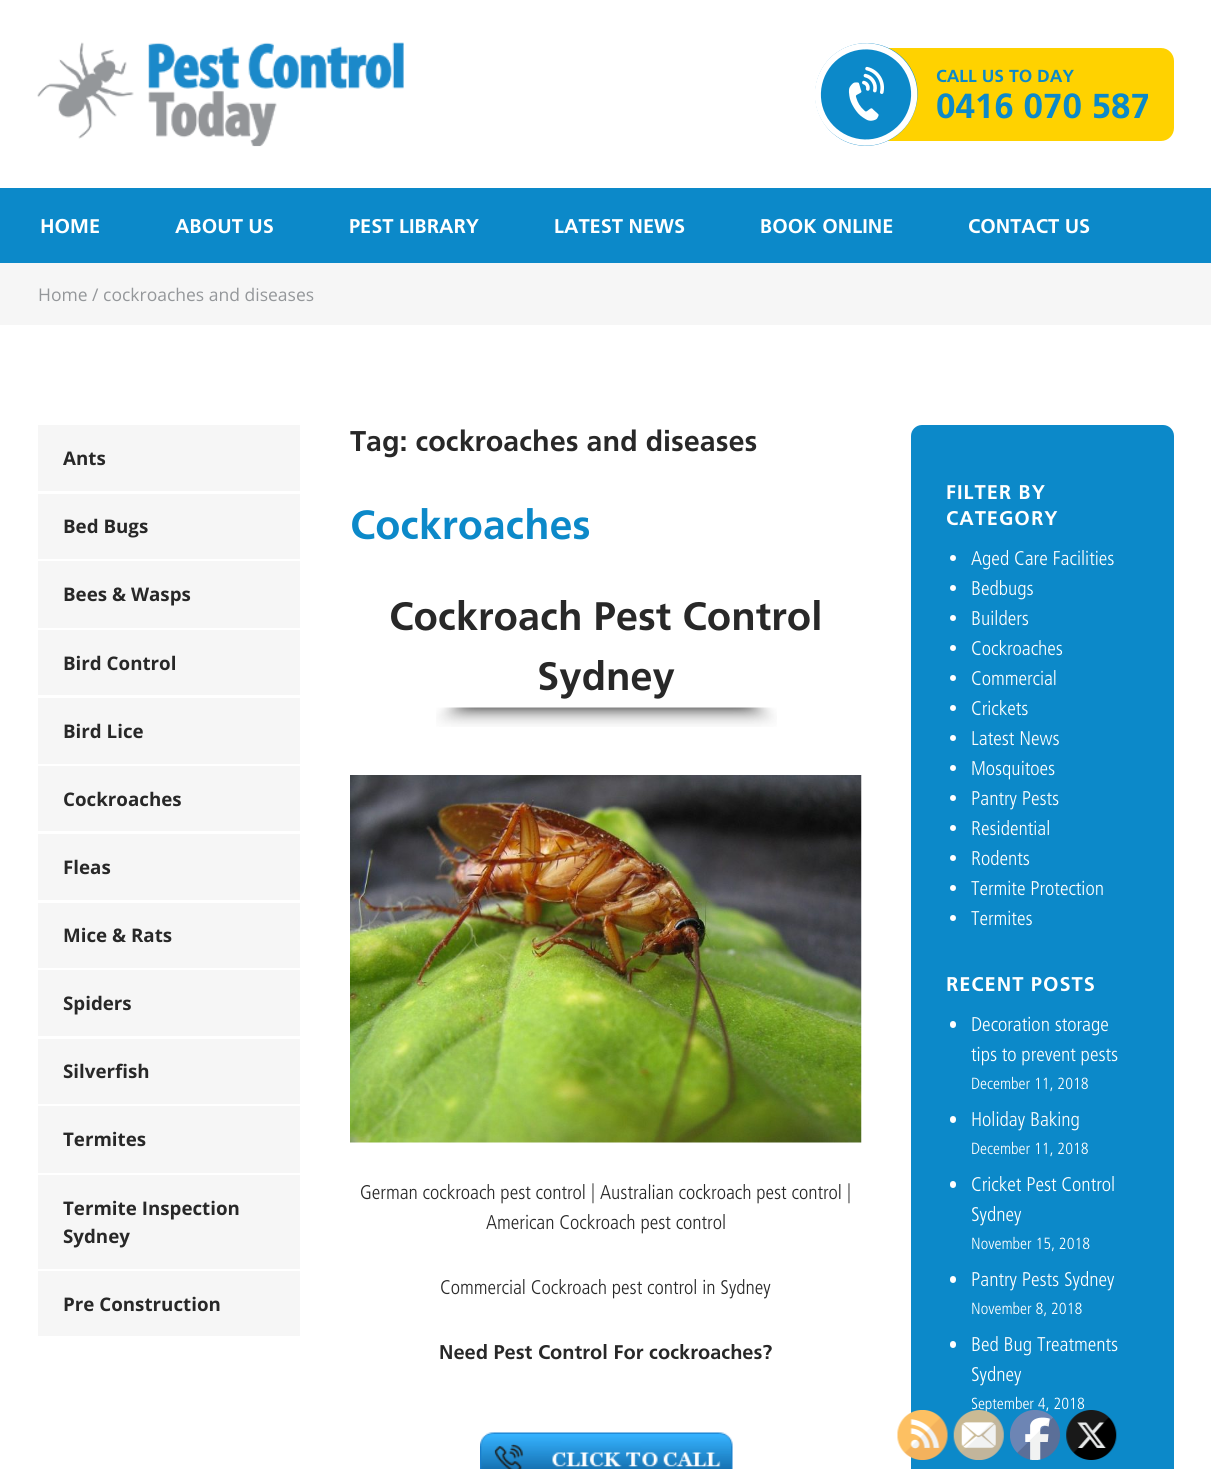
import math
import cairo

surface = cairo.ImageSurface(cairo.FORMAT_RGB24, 1211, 1469)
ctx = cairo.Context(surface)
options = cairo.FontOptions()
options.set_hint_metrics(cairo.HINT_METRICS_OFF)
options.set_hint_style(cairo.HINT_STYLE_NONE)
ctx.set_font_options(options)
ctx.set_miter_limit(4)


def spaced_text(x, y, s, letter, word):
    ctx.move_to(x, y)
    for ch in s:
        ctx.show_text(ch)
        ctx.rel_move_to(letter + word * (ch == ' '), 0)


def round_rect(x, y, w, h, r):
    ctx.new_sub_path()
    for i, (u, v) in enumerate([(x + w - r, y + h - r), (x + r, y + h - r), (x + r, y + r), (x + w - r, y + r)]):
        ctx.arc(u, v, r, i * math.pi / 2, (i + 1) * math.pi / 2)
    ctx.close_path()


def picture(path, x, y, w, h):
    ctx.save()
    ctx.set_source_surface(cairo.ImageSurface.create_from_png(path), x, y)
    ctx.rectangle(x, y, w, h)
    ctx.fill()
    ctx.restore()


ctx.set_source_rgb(1, 1, 1)
ctx.paint()
picture("img1.png", 37, 42, 367, 105)
ctx.set_source_rgb(1, 0.824, 0)
round_rect(866, 48, 308, 93, 13)
ctx.fill()
ctx.set_source_rgb(0.047, 0.537, 0.788)
ctx.new_path()
ctx.move_to(839, 51)
ctx.curve_to(863, 36, 895, 43, 910, 67)
ctx.curve_to(925, 91, 917, 123, 893, 138)
ctx.curve_to(869, 153, 838, 146, 823, 122)
ctx.curve_to(808, 98, 815, 66, 839, 51)
ctx.close_path()
ctx.fill()
ctx.new_path()
ctx.move_to(840.5, 53.5)
ctx.curve_to(863, 39.5, 893, 46.5, 907, 69)
ctx.curve_to(921, 91.5, 914, 121, 891.5, 135)
ctx.curve_to(869, 149.5, 839.5, 142.5, 825, 120)
ctx.curve_to(811, 97.5, 818, 67.5, 840.5, 53.5)
ctx.close_path()
ctx.set_source_rgb(1, 1, 1)
ctx.set_line_width(6.2)
ctx.stroke()
picture("img2.png", 848, 66, 36, 55)
ctx.select_font_face("Frutiger", cairo.FONT_SLANT_NORMAL, cairo.FONT_WEIGHT_BOLD)
ctx.set_font_size(17.5)
ctx.set_source_rgb(0.047, 0.537, 0.788)
ctx.move_to(936, 82)
ctx.show_text("CALL US TO DAY")
ctx.set_font_size(35)
ctx.move_to(936, 118)
ctx.show_text("0416 070 587")
ctx.rectangle(0, 188, 1211, 75)
ctx.fill()
ctx.set_font_size(20)
ctx.set_source_rgb(1, 1, 1)
ctx.move_to(40, 233)
ctx.show_text("HOME")
ctx.move_to(175, 233)
ctx.show_text("ABOUT US")
ctx.move_to(349, 233)
ctx.show_text("PEST LIBRARY")
ctx.move_to(554, 233)
ctx.show_text("LATEST NEWS")
ctx.move_to(760, 233)
ctx.show_text("BOOK ONLINE")
ctx.move_to(968, 233)
ctx.show_text("CONTACT US")
ctx.set_source_rgb(0.961, 0.961, 0.961)
ctx.rectangle(0, 263, 1211, 62)
ctx.fill()
ctx.select_font_face("Open Sans")
ctx.set_font_size(17.5)
ctx.set_source_rgb(0.58, 0.592, 0.604)
ctx.move_to(38, 301)
ctx.show_text("Home / cockroaches and diseases")
ctx.set_source_rgb(0.961, 0.961, 0.961)
ctx.rectangle(38, 425, 262, 66)
ctx.fill()
ctx.select_font_face("Open Sans", cairo.FONT_SLANT_NORMAL, cairo.FONT_WEIGHT_BOLD)
ctx.set_font_size(18.75)
ctx.set_source_rgb(0.157, 0.157, 0.157)
ctx.move_to(63, 465)
ctx.show_text("Ants")
ctx.set_source_rgb(0.961, 0.961, 0.961)
ctx.rectangle(38, 494, 262, 65)
ctx.fill()
ctx.set_source_rgb(0.157, 0.157, 0.157)
ctx.move_to(63, 533)
ctx.show_text("Bed Bugs")
ctx.set_source_rgb(0.961, 0.961, 0.961)
ctx.rectangle(38, 561, 262, 67)
ctx.fill()
ctx.set_source_rgb(0.157, 0.157, 0.157)
ctx.move_to(63, 601)
ctx.show_text("Bees & Wasps")
ctx.set_source_rgb(0.961, 0.961, 0.961)
ctx.rectangle(38, 630, 262, 65)
ctx.fill()
ctx.set_source_rgb(0.157, 0.157, 0.157)
ctx.move_to(63, 670)
ctx.show_text("Bird Control")
ctx.set_source_rgb(0.961, 0.961, 0.961)
ctx.rectangle(38, 698, 262, 66)
ctx.fill()
ctx.set_source_rgb(0.157, 0.157, 0.157)
ctx.move_to(63, 738)
ctx.show_text("Bird Lice")
ctx.set_source_rgb(0.961, 0.961, 0.961)
ctx.rectangle(38, 766, 262, 65)
ctx.fill()
ctx.set_source_rgb(0.157, 0.157, 0.157)
ctx.move_to(63, 806)
ctx.show_text("Cockroaches")
ctx.set_source_rgb(0.961, 0.961, 0.961)
ctx.rectangle(38, 834, 262, 66)
ctx.fill()
ctx.set_source_rgb(0.157, 0.157, 0.157)
ctx.move_to(63, 874)
ctx.show_text("Fleas")
ctx.set_source_rgb(0.961, 0.961, 0.961)
ctx.rectangle(38, 903, 262, 65)
ctx.fill()
ctx.set_source_rgb(0.157, 0.157, 0.157)
ctx.move_to(63, 942)
ctx.show_text("Mice & Rats")
ctx.set_source_rgb(0.961, 0.961, 0.961)
ctx.rectangle(38, 970, 262, 66)
ctx.fill()
ctx.set_source_rgb(0.157, 0.157, 0.157)
ctx.move_to(63, 1010)
ctx.show_text("Spiders")
ctx.set_source_rgb(0.961, 0.961, 0.961)
ctx.rectangle(38, 1039, 262, 65)
ctx.fill()
ctx.set_source_rgb(0.157, 0.157, 0.157)
ctx.move_to(63, 1078)
ctx.show_text("Silverfish")
ctx.set_source_rgb(0.961, 0.961, 0.961)
ctx.rectangle(38, 1106, 262, 67)
ctx.fill()
ctx.set_source_rgb(0.157, 0.157, 0.157)
ctx.move_to(63, 1146)
ctx.show_text("Termites")
ctx.set_source_rgb(0.961, 0.961, 0.961)
ctx.rectangle(38, 1175, 262, 94)
ctx.fill()
ctx.set_source_rgb(0.157, 0.157, 0.157)
ctx.move_to(63, 1215)
ctx.show_text("Termite Inspection")
ctx.move_to(63, 1243)
ctx.show_text("Sydney")
ctx.set_source_rgb(0.961, 0.961, 0.961)
ctx.rectangle(38, 1271, 262, 65)
ctx.fill()
ctx.set_source_rgb(0.157, 0.157, 0.157)
ctx.move_to(63, 1311)
ctx.show_text("Pre Construction")
ctx.select_font_face("Frutiger", cairo.FONT_SLANT_NORMAL, cairo.FONT_WEIGHT_BOLD)
ctx.set_font_size(28.75)
ctx.move_to(350, 451)
ctx.show_text("Tag: cockroaches and diseases")
ctx.set_font_size(41.25)
ctx.set_source_rgb(0.047, 0.537, 0.788)
ctx.move_to(350, 539)
ctx.show_text("Cockroaches")
ctx.set_font_size(40)
ctx.set_source_rgb(0.157, 0.157, 0.157)
ctx.move_to(389, 630)
ctx.show_text("Cockroach Pest Control")
ctx.move_to(537, 690)
ctx.show_text("Sydney")
picture("img3.png", 436, 707, 341, 20)
picture("img4.png", 350, 775, 512, 368)
ctx.select_font_face("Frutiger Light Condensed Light")
ctx.set_font_size(20)
ctx.move_to(360, 1199)
ctx.show_text("German cockroach pest control | Australian cockroach pest control |")
ctx.move_to(486, 1229)
ctx.show_text("American Cockroach pest control")
ctx.move_to(440, 1294)
ctx.show_text("Commercial Cockroach pest control in Sydney")
ctx.select_font_face("Frutiger", cairo.FONT_SLANT_NORMAL, cairo.FONT_WEIGHT_BOLD)
ctx.move_to(439, 1359)
ctx.show_text("Need Pest Control For cockroaches?")
picture("img5.png", 480, 1432, 253, 37)
ctx.set_source_rgb(0.047, 0.537, 0.788)
round_rect(911, 425, 263, 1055, 11)
ctx.fill()
ctx.set_source_rgb(1, 1, 1)
spaced_text(946, 499, "FILTER BY", 1, 0)
spaced_text(946, 525, "CATEGORY", 1, 0)
ctx.new_path()
ctx.arc(953, 558, 3, 0, 2 * math.pi)
ctx.fill()
ctx.select_font_face("Frutiger Light Condensed Light")
ctx.move_to(971, 565)
ctx.show_text("Aged Care Facilities")
ctx.new_path()
ctx.arc(953, 588, 3, 0, 2 * math.pi)
ctx.fill()
ctx.move_to(971, 595)
ctx.show_text("Bedbugs")
ctx.new_path()
ctx.arc(953, 618, 3, 0, 2 * math.pi)
ctx.fill()
ctx.move_to(971, 625)
ctx.show_text("Builders")
ctx.new_path()
ctx.arc(953, 648, 3, 0, 2 * math.pi)
ctx.fill()
ctx.move_to(971, 655)
ctx.show_text("Cockroaches")
ctx.new_path()
ctx.arc(953, 678, 3, 0, 2 * math.pi)
ctx.fill()
ctx.move_to(971, 685)
ctx.show_text("Commercial")
ctx.new_path()
ctx.arc(953, 708, 3, 0, 2 * math.pi)
ctx.fill()
ctx.move_to(971, 715)
ctx.show_text("Crickets")
ctx.new_path()
ctx.arc(953, 738, 3, 0, 2 * math.pi)
ctx.fill()
ctx.move_to(971, 745)
ctx.show_text("Latest News")
ctx.new_path()
ctx.arc(953, 768, 3, 0, 2 * math.pi)
ctx.fill()
ctx.move_to(971, 775)
ctx.show_text("Mosquitoes")
ctx.new_path()
ctx.arc(953, 798, 3, 0, 2 * math.pi)
ctx.fill()
ctx.move_to(971, 805)
ctx.show_text("Pantry Pests")
ctx.new_path()
ctx.arc(953, 828, 3, 0, 2 * math.pi)
ctx.fill()
ctx.move_to(971, 835)
ctx.show_text("Residential")
ctx.new_path()
ctx.arc(953, 858, 3, 0, 2 * math.pi)
ctx.fill()
ctx.move_to(971, 865)
ctx.show_text("Rodents")
ctx.new_path()
ctx.arc(953, 888, 3, 0, 2 * math.pi)
ctx.fill()
ctx.move_to(971, 895)
ctx.show_text("Termite Protection")
ctx.new_path()
ctx.arc(953, 918, 3, 0, 2 * math.pi)
ctx.fill()
ctx.move_to(971, 925)
ctx.show_text("Termites")
ctx.select_font_face("Frutiger", cairo.FONT_SLANT_NORMAL, cairo.FONT_WEIGHT_BOLD)
spaced_text(946, 991, "RECENT POSTS", 1, 0)
round_rect(950, 1021, 6, 7, 3)
ctx.fill()
ctx.select_font_face("Frutiger Light Condensed Light")
ctx.move_to(971, 1031)
ctx.show_text("Decoration storage")
ctx.move_to(971, 1061)
ctx.show_text("tips to prevent pests")
ctx.set_font_size(16.25)
ctx.move_to(971, 1089)
ctx.show_text("December 11, 2018")
round_rect(950, 1116, 6, 7, 3)
ctx.fill()
ctx.set_font_size(20)
ctx.move_to(971, 1126)
ctx.show_text("Holiday Baking")
ctx.set_font_size(16.25)
ctx.move_to(971, 1154)
ctx.show_text("December 11, 2018")
round_rect(950, 1181, 6, 7, 3)
ctx.fill()
ctx.set_font_size(20)
ctx.move_to(971, 1191)
ctx.show_text("Cricket Pest Control")
ctx.move_to(971, 1221)
ctx.show_text("Sydney")
ctx.set_font_size(16.25)
ctx.move_to(971, 1249)
ctx.show_text("November 15, 2018")
round_rect(950, 1276, 6, 7, 3)
ctx.fill()
ctx.set_font_size(20)
ctx.move_to(971, 1286)
ctx.show_text("Pantry Pests Sydney")
ctx.set_font_size(16.25)
ctx.move_to(971, 1314)
ctx.show_text("November 8, 2018")
round_rect(950, 1341, 6, 7, 3)
ctx.fill()
ctx.set_font_size(20)
ctx.move_to(971, 1351)
ctx.show_text("Bed Bug Treatments")
ctx.move_to(971, 1381)
ctx.show_text("Sydney")
ctx.set_font_size(16.25)
ctx.move_to(971, 1409)
ctx.show_text("September 4, 2018")
picture("img6.png", 897, 1410, 51, 50)
picture("img7.png", 953, 1410, 51, 50)
picture("img8.png", 1010, 1410, 50, 50)
picture("img9.png", 1066, 1410, 51, 50)
surface.write_to_png("page.png")
